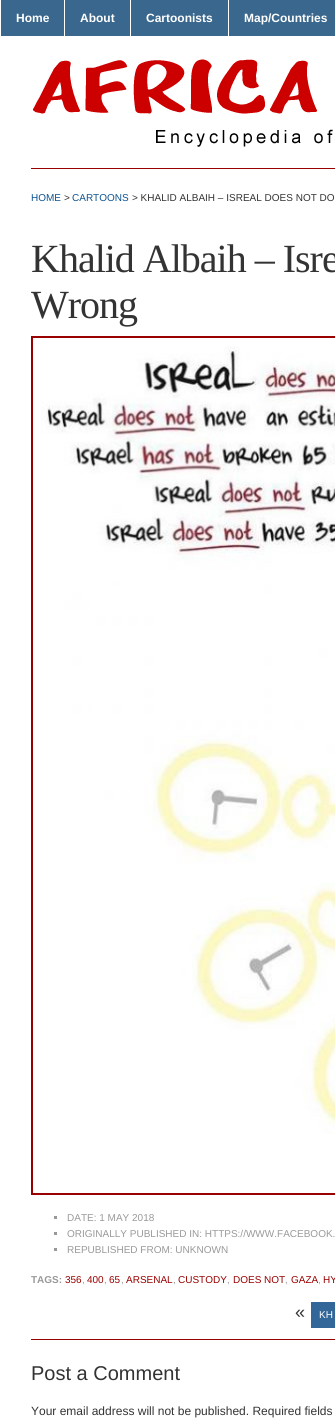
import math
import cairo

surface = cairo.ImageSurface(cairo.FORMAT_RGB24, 335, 1420)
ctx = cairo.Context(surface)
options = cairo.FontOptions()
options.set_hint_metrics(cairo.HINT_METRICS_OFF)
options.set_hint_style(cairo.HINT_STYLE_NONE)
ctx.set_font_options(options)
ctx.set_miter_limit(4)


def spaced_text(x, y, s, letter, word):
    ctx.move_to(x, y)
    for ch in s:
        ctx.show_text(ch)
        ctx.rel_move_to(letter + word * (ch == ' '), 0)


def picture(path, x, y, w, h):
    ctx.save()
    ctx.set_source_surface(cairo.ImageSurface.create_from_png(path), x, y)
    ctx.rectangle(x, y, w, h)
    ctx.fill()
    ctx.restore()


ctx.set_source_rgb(1, 1, 1)
ctx.paint()
ctx.set_source_rgb(0.227, 0.404, 0.553)
ctx.rectangle(1, 0, 334, 36)
ctx.fill()
ctx.set_source_rgb(1, 1, 1)
ctx.rectangle(64, 0, 1, 36)
ctx.fill()
ctx.select_font_face("Liberation Sans", cairo.FONT_SLANT_NORMAL, cairo.FONT_WEIGHT_BOLD)
ctx.set_font_size(12)
ctx.move_to(16, 22)
ctx.show_text("Home")
ctx.rectangle(130, 0, 1, 36)
ctx.fill()
ctx.move_to(80, 22)
ctx.show_text("About")
ctx.rectangle(228, 0, 1, 36)
ctx.fill()
ctx.move_to(146, 22)
ctx.show_text("Cartoonists")
ctx.move_to(244, 22)
ctx.show_text("Map/Countries")
picture("img1.png", 33, 59, 300, 88)
ctx.set_source_rgb(0.6, 0, 0)
ctx.rectangle(31, 168, 304, 1)
ctx.fill()
ctx.select_font_face("Liberation Sans")
ctx.set_font_size(10)
ctx.set_source_rgb(0.047, 0.325, 0.565)
ctx.move_to(31, 201)
ctx.show_text("HOME")
ctx.set_source_rgb(0.2, 0.2, 0.2)
ctx.move_to(64, 201)
ctx.show_text(">")
ctx.set_source_rgb(0.047, 0.325, 0.565)
ctx.move_to(72, 201)
ctx.show_text("CARTOONS")
ctx.set_source_rgb(0.2, 0.2, 0.2)
ctx.move_to(132, 201)
ctx.show_text("> KHALID ALBAIH – ISREAL DOES NOT DO")
ctx.select_font_face("Liberation Serif")
ctx.set_font_size(40)
spaced_text(31, 272, "Khalid Albaih – Isre", -1, 0)
spaced_text(31, 318, "Wrong", -1, 0)
ctx.rectangle(32, 337, 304, 857)
ctx.set_source_rgb(0.6, 0, 0)
ctx.stroke()
picture("img2.png", 41, 346, 294, 788)
ctx.set_source_rgb(0.6, 0.6, 0.6)
ctx.rectangle(54, 1216, 3, 3)
ctx.fill()
ctx.select_font_face("Liberation Sans")
ctx.set_font_size(10)
ctx.move_to(67, 1221)
ctx.show_text("DATE: 1 MAY 2018")
ctx.rectangle(54, 1232, 3, 3)
ctx.fill()
ctx.move_to(67, 1237)
ctx.show_text("ORIGINALLY PUBLISHED IN: HTTPS://WWW.FACEBOOK.")
ctx.rectangle(54, 1248, 3, 3)
ctx.fill()
ctx.move_to(67, 1253)
ctx.show_text("REPUBLISHED FROM: UNKNOWN")
ctx.select_font_face("Liberation Sans", cairo.FONT_SLANT_NORMAL, cairo.FONT_WEIGHT_BOLD)
ctx.move_to(31, 1283)
ctx.show_text("TAGS:")
ctx.select_font_face("Liberation Sans")
ctx.set_source_rgb(0.6, 0, 0)
ctx.move_to(65, 1283)
ctx.show_text("356")
ctx.set_source_rgb(0.6, 0.6, 0.6)
ctx.move_to(82, 1283)
ctx.show_text(",")
ctx.set_source_rgb(0.6, 0, 0)
ctx.move_to(87, 1283)
ctx.show_text("400")
ctx.set_source_rgb(0.6, 0.6, 0.6)
ctx.move_to(104, 1283)
ctx.show_text(",")
ctx.set_source_rgb(0.6, 0, 0)
ctx.move_to(109, 1283)
ctx.show_text("65")
ctx.set_source_rgb(0.6, 0.6, 0.6)
ctx.move_to(121, 1283)
ctx.show_text(",")
ctx.set_source_rgb(0.6, 0, 0)
ctx.move_to(126, 1283)
ctx.show_text("ARSENAL")
ctx.set_source_rgb(0.6, 0.6, 0.6)
ctx.move_to(173, 1283)
ctx.show_text(",")
ctx.set_source_rgb(0.6, 0, 0)
ctx.move_to(178, 1283)
ctx.show_text("CUSTODY")
ctx.set_source_rgb(0.6, 0.6, 0.6)
ctx.move_to(227, 1283)
ctx.show_text(",")
ctx.set_source_rgb(0.6, 0, 0)
ctx.move_to(233, 1283)
ctx.show_text("DOES NOT")
ctx.set_source_rgb(0.6, 0.6, 0.6)
ctx.move_to(285, 1283)
ctx.show_text(",")
ctx.set_source_rgb(0.6, 0, 0)
ctx.move_to(291, 1283)
ctx.show_text("GAZA")
ctx.set_source_rgb(0.6, 0.6, 0.6)
ctx.move_to(318, 1283)
ctx.show_text(",")
ctx.set_source_rgb(0.6, 0, 0)
ctx.move_to(323, 1283)
ctx.show_text("HY")
ctx.set_font_size(18)
ctx.set_source_rgb(0.2, 0.2, 0.2)
ctx.move_to(295, 1318)
ctx.show_text("«")
ctx.set_source_rgb(0.2, 0.4, 0.6)
ctx.rectangle(311, 1302, 24, 26)
ctx.fill()
ctx.set_font_size(10)
ctx.set_source_rgb(1, 1, 1)
ctx.move_to(319, 1318)
ctx.show_text("KH")
ctx.set_source_rgb(0.6, 0, 0)
ctx.rectangle(31, 1339, 304, 1)
ctx.fill()
ctx.set_font_size(20)
ctx.set_source_rgb(0.2, 0.2, 0.2)
ctx.move_to(31, 1380)
ctx.show_text("Post a Comment")
ctx.set_font_size(12)
ctx.move_to(31, 1415)
ctx.show_text("Your email address will not be published. Required fields")
surface.write_to_png("page.png")
